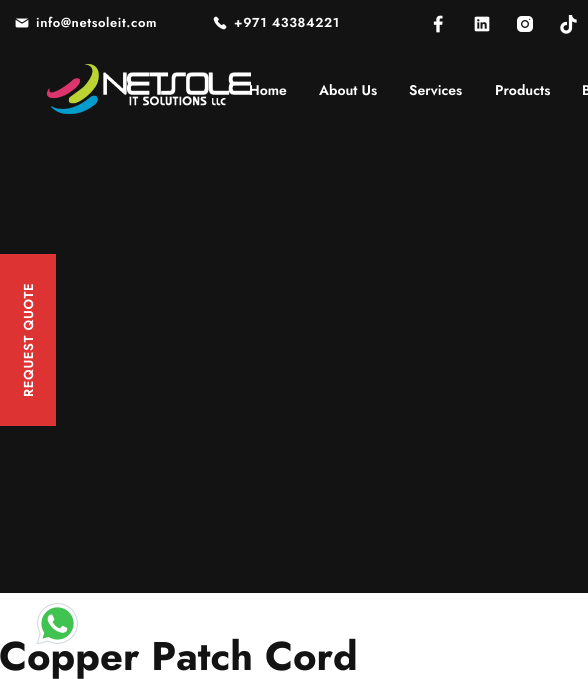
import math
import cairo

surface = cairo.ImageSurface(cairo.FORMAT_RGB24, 588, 679)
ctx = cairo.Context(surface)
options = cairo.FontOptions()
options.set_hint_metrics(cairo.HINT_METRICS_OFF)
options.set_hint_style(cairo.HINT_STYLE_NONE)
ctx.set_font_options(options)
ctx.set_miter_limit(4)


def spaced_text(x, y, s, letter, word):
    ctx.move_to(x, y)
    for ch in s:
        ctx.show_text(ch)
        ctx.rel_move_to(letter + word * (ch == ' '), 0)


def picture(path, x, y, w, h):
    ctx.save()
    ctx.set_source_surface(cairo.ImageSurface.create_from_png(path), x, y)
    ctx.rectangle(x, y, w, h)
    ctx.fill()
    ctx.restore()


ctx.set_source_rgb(1, 1, 1)
ctx.paint()
ctx.set_source_rgb(0.075, 0.075, 0.078)
ctx.rectangle(0, 0, 588, 44)
ctx.fill()
picture("img1.png", 15, 18, 14, 10)
ctx.select_font_face("Jost SemiBold")
ctx.set_font_size(13)
ctx.set_source_rgb(1, 1, 1)
spaced_text(36, 27, "info@netsoleit.com", 0.6, 0)
picture("img2.png", 213, 16, 14, 14)
spaced_text(234, 27, "+971 43384221", 0.6, 0)
picture("img3.png", 433, 15, 10, 18)
picture("img4.png", 474, 16, 16, 16)
picture("img5.png", 517, 16, 16, 16)
picture("img6.png", 560, 15, 17, 19)
ctx.set_source_rgb(0.075, 0.075, 0.078)
ctx.rectangle(0, 44, 588, 549)
ctx.fill()
picture("img7.png", 47, 64, 204, 50)
ctx.set_font_size(14)
ctx.set_source_rgb(1, 1, 1)
ctx.move_to(249, 95)
ctx.show_text("Home")
ctx.move_to(319, 95)
ctx.show_text("About Us")
ctx.move_to(409, 95)
ctx.show_text("Services")
ctx.move_to(495, 95)
ctx.show_text("Products")
ctx.move_to(582, 95)
ctx.show_text("B")
ctx.set_source_rgb(0.867, 0.2, 0.2)
ctx.rectangle(0, 254, 56, 172)
ctx.fill()
ctx.set_font_size(13)
ctx.set_source_rgb(1, 1, 1)
ctx.save()
ctx.translate(33, 397)
ctx.rotate(-90 * math.pi / 180)
spaced_text(0, 0, "REQUEST QUOTE", 0.6, 0)
ctx.restore()
ctx.select_font_face("Jost", cairo.FONT_SLANT_NORMAL, cairo.FONT_WEIGHT_BOLD)
ctx.set_font_size(40)
ctx.set_source_rgb(0.075, 0.075, 0.078)
ctx.move_to(-1, 670)
ctx.show_text("Copper Patch Cord")
picture("img8.png", 37, 603, 41, 42)
surface.write_to_png("page.png")
